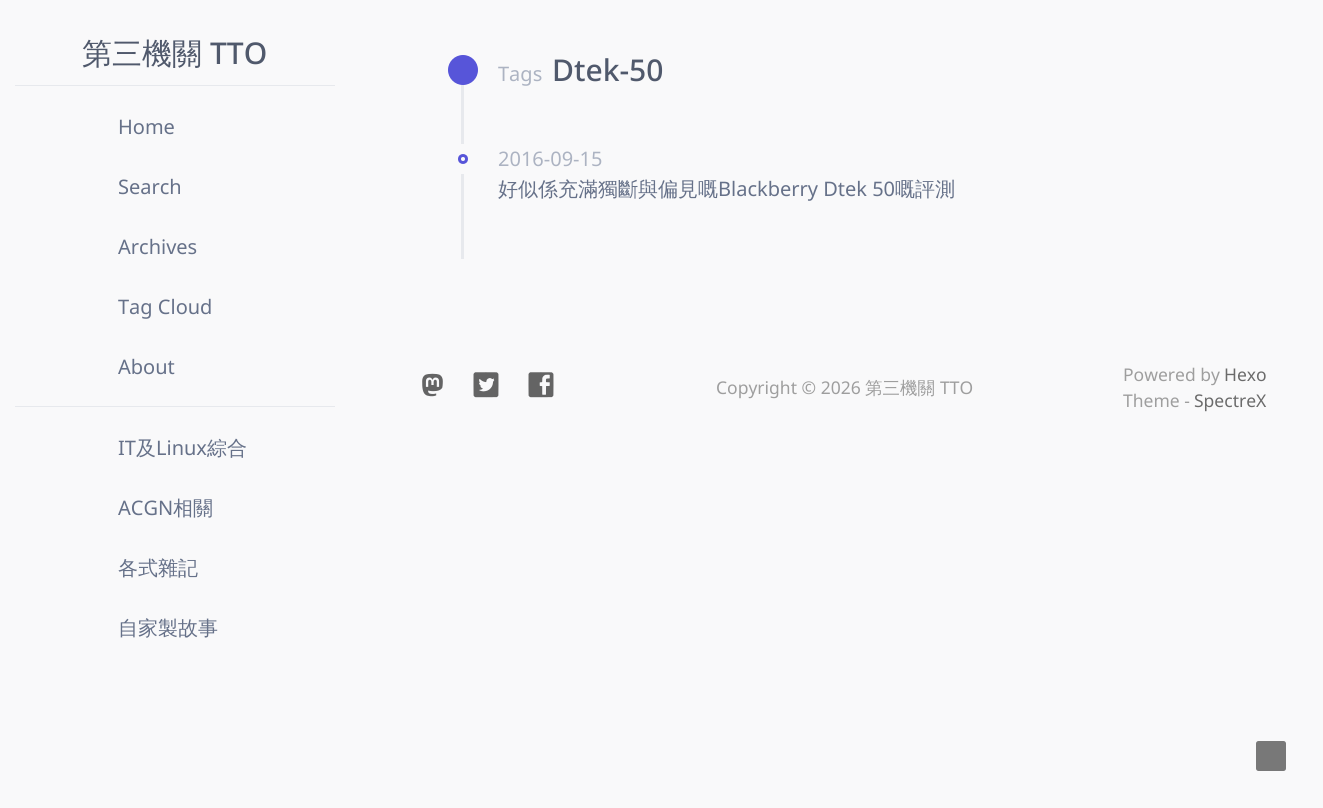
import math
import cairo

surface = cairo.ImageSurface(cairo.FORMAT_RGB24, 1323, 808)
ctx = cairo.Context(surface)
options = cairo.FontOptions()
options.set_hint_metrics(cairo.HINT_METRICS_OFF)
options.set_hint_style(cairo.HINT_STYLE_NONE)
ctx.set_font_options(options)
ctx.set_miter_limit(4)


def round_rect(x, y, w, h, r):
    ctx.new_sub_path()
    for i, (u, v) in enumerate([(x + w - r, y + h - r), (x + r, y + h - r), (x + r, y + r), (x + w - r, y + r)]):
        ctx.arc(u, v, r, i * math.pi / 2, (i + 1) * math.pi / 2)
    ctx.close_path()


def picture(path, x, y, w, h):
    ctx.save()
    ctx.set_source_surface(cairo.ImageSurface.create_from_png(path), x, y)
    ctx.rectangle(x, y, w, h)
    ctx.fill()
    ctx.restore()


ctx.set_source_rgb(0.973, 0.976, 0.98)
ctx.paint()
ctx.select_font_face("WenQuanYi Zen Hei Medium")
ctx.set_font_size(30)
ctx.set_source_rgb(0.314, 0.349, 0.424)
ctx.move_to(82, 64)
ctx.show_text("第三機關")
ctx.select_font_face("Noto Sans Medium")
ctx.move_to(210, 64)
ctx.show_text("TTO")
ctx.set_source_rgb(0.906, 0.914, 0.929)
ctx.rectangle(15, 85, 320, 1)
ctx.fill()
ctx.select_font_face("Noto Sans")
ctx.set_font_size(20)
ctx.set_source_rgb(0.4, 0.443, 0.537)
ctx.move_to(118, 134)
ctx.show_text("Home")
ctx.move_to(118, 194)
ctx.show_text("Search")
ctx.move_to(118, 254)
ctx.show_text("Archives")
ctx.move_to(118, 314)
ctx.show_text("Tag Cloud")
ctx.move_to(118, 374)
ctx.show_text("About")
ctx.set_source_rgb(0.906, 0.914, 0.929)
ctx.rectangle(15, 406, 320, 1)
ctx.fill()
ctx.set_source_rgb(0.4, 0.443, 0.537)
ctx.move_to(118, 455)
ctx.show_text("IT")
ctx.select_font_face("WenQuanYi Zen Hei Medium")
ctx.move_to(136, 455)
ctx.show_text("及")
ctx.select_font_face("Noto Sans")
ctx.move_to(156, 455)
ctx.show_text("Linux")
ctx.select_font_face("WenQuanYi Zen Hei Medium")
ctx.move_to(207, 455)
ctx.show_text("綜合")
ctx.select_font_face("Noto Sans")
ctx.move_to(118, 515)
ctx.show_text("ACGN")
ctx.select_font_face("WenQuanYi Zen Hei Medium")
ctx.move_to(173, 515)
ctx.show_text("相關")
ctx.move_to(118, 575)
ctx.show_text("各式雜記")
ctx.move_to(118, 635)
ctx.show_text("自家製故事")
ctx.set_source_rgb(0.341, 0.333, 0.851)
ctx.new_path()
ctx.arc(463, 70, 15, 0, 2 * math.pi)
ctx.fill()
ctx.select_font_face("Noto Sans")
ctx.set_source_rgb(0.675, 0.702, 0.761)
ctx.move_to(498, 81)
ctx.show_text("Tags")
ctx.select_font_face("Noto Sans Medium")
ctx.set_font_size(30)
ctx.set_source_rgb(0.314, 0.349, 0.424)
ctx.move_to(552, 81)
ctx.show_text("Dtek-50")
ctx.set_source_rgb(0.906, 0.914, 0.929)
ctx.rectangle(461, 85, 3, 59)
ctx.fill()
ctx.arc(463, 159, 3.5, 0, 2 * math.pi)
ctx.set_source_rgb(0.341, 0.333, 0.851)
ctx.set_line_width(3)
ctx.stroke()
ctx.select_font_face("Noto Sans")
ctx.set_font_size(20)
ctx.set_source_rgb(0.675, 0.702, 0.761)
ctx.move_to(498, 166)
ctx.show_text("2016-09-15")
ctx.select_font_face("WenQuanYi Zen Hei Medium")
ctx.set_source_rgb(0.4, 0.443, 0.537)
ctx.move_to(498, 196)
ctx.show_text("好似係充滿獨斷與偏見嘅")
ctx.select_font_face("Noto Sans")
ctx.move_to(718, 196)
ctx.show_text("Blackberry Dtek 50")
ctx.select_font_face("WenQuanYi Zen Hei Medium")
ctx.move_to(895, 196)
ctx.show_text("嘅評測")
ctx.set_source_rgb(0.906, 0.914, 0.929)
ctx.rectangle(461, 174, 3, 85)
ctx.fill()
picture("img1.png", 422, 373, 21, 24)
picture("img2.png", 473, 372, 26, 26)
picture("img3.png", 528, 372, 26, 26)
ctx.select_font_face("Noto Sans")
ctx.set_font_size(17.5)
ctx.set_source_rgb(0.62, 0.62, 0.62)
ctx.move_to(716, 394)
ctx.show_text("Copyright © 2026")
ctx.select_font_face("WenQuanYi Zen Hei Medium")
ctx.move_to(865, 394)
ctx.show_text("第三機關")
ctx.select_font_face("Noto Sans")
ctx.move_to(940, 394)
ctx.show_text("TTO")
ctx.move_to(1123, 381)
ctx.show_text("Powered by")
ctx.set_source_rgb(0.42, 0.42, 0.42)
ctx.move_to(1224, 381)
ctx.show_text("Hexo")
ctx.set_source_rgb(0.62, 0.62, 0.62)
ctx.move_to(1123, 407)
ctx.show_text("Theme -")
ctx.set_source_rgb(0.42, 0.42, 0.42)
ctx.move_to(1194, 407)
ctx.show_text("SpectreX")
ctx.set_source_rgb(0.471, 0.471, 0.471)
round_rect(1256, 741, 30, 30, 2.5)
ctx.fill()
surface.write_to_png("page.png")
